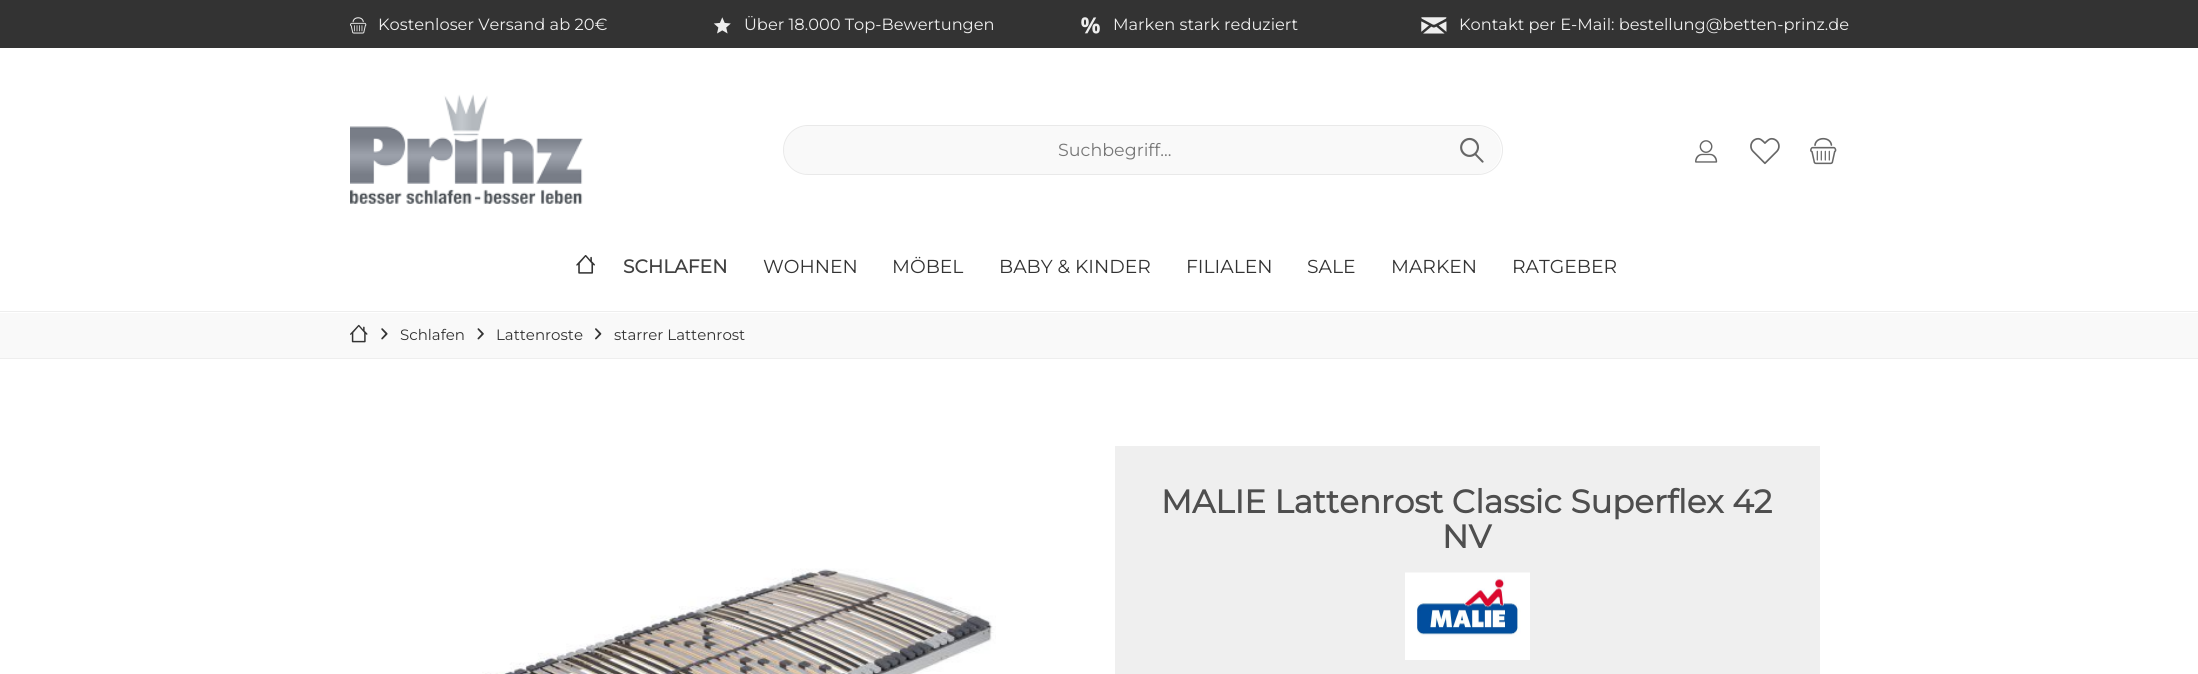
import math
import cairo

surface = cairo.ImageSurface(cairo.FORMAT_RGB24, 2198, 674)
ctx = cairo.Context(surface)
options = cairo.FontOptions()
options.set_hint_metrics(cairo.HINT_METRICS_OFF)
options.set_hint_style(cairo.HINT_STYLE_NONE)
ctx.set_font_options(options)
ctx.set_miter_limit(4)


def round_rect(x, y, w, h, r):
    ctx.new_sub_path()
    for i, (u, v) in enumerate([(x + w - r, y + h - r), (x + r, y + h - r), (x + r, y + r), (x + w - r, y + r)]):
        ctx.arc(u, v, r, i * math.pi / 2, (i + 1) * math.pi / 2)
    ctx.close_path()


def picture(path, x, y, w, h):
    ctx.save()
    ctx.set_source_surface(cairo.ImageSurface.create_from_png(path), x, y)
    ctx.rectangle(x, y, w, h)
    ctx.fill()
    ctx.restore()


ctx.set_source_rgb(1, 1, 1)
ctx.paint()
ctx.set_source_rgb(0.933, 0.933, 0.933)
ctx.rectangle(0, 311, 2198, 1)
ctx.fill()
ctx.set_source_rgb(0.2, 0.2, 0.2)
ctx.rectangle(0, 0, 2198, 48)
ctx.fill()
picture("img1.png", 350, 17, 17, 17)
ctx.select_font_face("Montserrat Thin")
ctx.set_font_size(16.25)
ctx.set_source_rgb(0.933, 0.933, 0.933)
ctx.move_to(378, 30)
ctx.show_text("Kostenloser Versand ab 20€")
picture("img2.png", 713, 17, 18, 17)
ctx.move_to(744, 30)
ctx.show_text("Über 18.000 Top-Bewertungen")
picture("img3.png", 1081, 17, 19, 17)
ctx.move_to(1113, 30)
ctx.show_text("Marken stark reduziert")
picture("img4.png", 1421, 17, 26, 17)
ctx.move_to(1459, 30)
ctx.show_text("Kontakt per E-Mail: bestellung@betten-prinz.de")
picture("img5.png", 350, 94, 233, 110)
ctx.set_source_rgb(0.973, 0.973, 0.973)
round_rect(784, 126, 717, 48, 24)
ctx.fill()
round_rect(783.5, 125.5, 719, 49, 24.5)
ctx.set_source_rgb(0.914, 0.914, 0.914)
ctx.set_line_width(1)
ctx.stroke()
ctx.set_font_size(17.5)
ctx.set_source_rgb(0.467, 0.467, 0.467)
ctx.move_to(1058, 156)
ctx.show_text("Suchbegriff...")
picture("img6.png", 1460, 137, 24, 26)
picture("img7.png", 1695, 140, 23, 23)
picture("img8.png", 1750, 137, 30, 28)
picture("img9.png", 1810, 137, 27, 28)
picture("img10.png", 576, 255, 19, 19)
ctx.select_font_face("Montserrat", cairo.FONT_SLANT_NORMAL, cairo.FONT_WEIGHT_BOLD)
ctx.set_font_size(18.75)
ctx.set_source_rgb(0.255, 0.255, 0.255)
ctx.move_to(623, 273)
ctx.show_text("SCHLAFEN")
ctx.select_font_face("Montserrat Thin")
ctx.set_source_rgb(0.2, 0.2, 0.2)
ctx.move_to(763, 273)
ctx.show_text("WOHNEN")
ctx.move_to(892, 273)
ctx.show_text("MÖBEL")
ctx.move_to(999, 273)
ctx.show_text("BABY & KINDER")
ctx.move_to(1186, 273)
ctx.show_text("FILIALEN")
ctx.move_to(1307, 273)
ctx.show_text("SALE")
ctx.move_to(1391, 273)
ctx.show_text("MARKEN")
ctx.move_to(1512, 273)
ctx.show_text("RATGEBER")
ctx.set_source_rgb(0.973, 0.973, 0.973)
ctx.rectangle(0, 313, 2198, 45)
ctx.fill()
ctx.set_source_rgb(0.933, 0.933, 0.933)
ctx.rectangle(0, 358, 2198, 1)
ctx.fill()
picture("img11.png", 350, 324, 18, 19)
picture("img12.png", 381, 328, 7, 12)
ctx.set_font_size(15)
ctx.set_source_rgb(0.2, 0.2, 0.2)
ctx.move_to(400, 340)
ctx.show_text("Schlafen")
picture("img13.png", 477, 328, 7, 12)
ctx.move_to(496, 340)
ctx.show_text("Lattenroste")
picture("img14.png", 595, 328, 7, 12)
ctx.move_to(614, 340)
ctx.show_text("starrer Lattenrost")
ctx.set_source_rgb(0.937, 0.937, 0.937)
ctx.rectangle(1115, 446, 705, 228)
ctx.fill()
ctx.select_font_face("Montserrat", cairo.FONT_SLANT_NORMAL, cairo.FONT_WEIGHT_BOLD)
ctx.set_font_size(32.5)
ctx.set_source_rgb(0.306, 0.306, 0.306)
ctx.move_to(1161, 513)
ctx.show_text("MALIE Lattenrost Classic Superflex 42")
ctx.move_to(1442, 548)
ctx.show_text("NV")
picture("img15.png", 1405, 572, 125, 88)
picture("img16.png", 482, 568, 514, 106)
surface.write_to_png("page.png")
